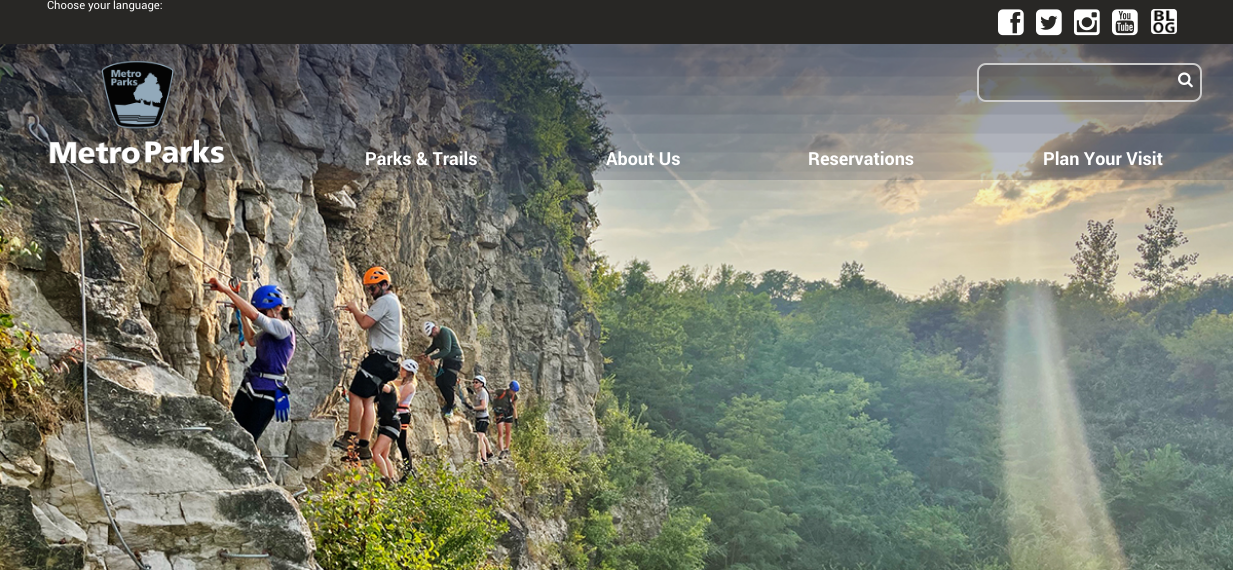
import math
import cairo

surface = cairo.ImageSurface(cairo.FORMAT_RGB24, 1233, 570)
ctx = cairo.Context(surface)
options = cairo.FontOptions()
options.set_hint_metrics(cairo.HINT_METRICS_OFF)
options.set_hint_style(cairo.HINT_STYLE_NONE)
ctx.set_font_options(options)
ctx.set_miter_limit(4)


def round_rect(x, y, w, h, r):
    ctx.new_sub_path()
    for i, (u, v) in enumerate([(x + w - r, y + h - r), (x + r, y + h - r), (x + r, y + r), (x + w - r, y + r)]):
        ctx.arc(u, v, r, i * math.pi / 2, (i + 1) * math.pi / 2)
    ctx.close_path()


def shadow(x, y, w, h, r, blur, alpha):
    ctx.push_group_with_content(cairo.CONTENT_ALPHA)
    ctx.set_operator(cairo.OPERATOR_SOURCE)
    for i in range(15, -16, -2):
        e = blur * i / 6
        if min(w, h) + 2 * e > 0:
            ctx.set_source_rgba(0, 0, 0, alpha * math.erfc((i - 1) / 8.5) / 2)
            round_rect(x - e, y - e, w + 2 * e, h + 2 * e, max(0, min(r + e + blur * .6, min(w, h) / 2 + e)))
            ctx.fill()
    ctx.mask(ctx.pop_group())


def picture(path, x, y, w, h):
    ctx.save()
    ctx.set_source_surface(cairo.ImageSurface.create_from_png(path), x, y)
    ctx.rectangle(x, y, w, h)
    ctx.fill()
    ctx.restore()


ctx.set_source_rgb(1, 1, 1)
ctx.paint()
picture("img8.png", 0, 44, 1233, 526)
ctx.set_source_rgba(0.173, 0.192, 0.275, 0.2)
ctx.rectangle(0, 44, 1233, 136)
ctx.fill()
ctx.set_source_rgb(0.039, 0.063, 0.173)
shadow(-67, -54, 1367, 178, 0, 57, 0.48)
ctx.set_source_rgb(0.157, 0.153, 0.145)
ctx.rectangle(0, 0, 1233, 44)
ctx.fill()
ctx.select_font_face("Roboto")
ctx.set_font_size(11.25)
ctx.set_source_rgb(1, 1, 1)
ctx.move_to(47, 9)
ctx.show_text("Choose your language:")
picture("img1.png", 998, 9, 26, 27)
picture("img2.png", 1036, 9, 26, 27)
picture("img3.png", 1074, 9, 26, 27)
picture("img4.png", 1112, 9, 26, 27)
picture("img5.png", 1151, 9, 26, 25)
ctx.set_source_rgba(0, 0, 0, 0.2)
round_rect(978, 64, 223, 37, 8)
ctx.fill_preserve()
ctx.set_source_rgb(0.8, 0.8, 0.8)
ctx.stroke()
picture("img6.png", 1178, 72, 15, 16)
picture("img7.png", 49, 60, 176, 106)
ctx.select_font_face("Roboto", cairo.FONT_SLANT_NORMAL, cairo.FONT_WEIGHT_BOLD)
ctx.set_font_size(18)
ctx.set_source_rgb(1, 1, 1)
ctx.move_to(365, 165)
ctx.show_text("Parks & Trails")
ctx.move_to(606, 165)
ctx.show_text("About Us")
ctx.move_to(808, 165)
ctx.show_text("Reservations")
ctx.move_to(1043, 165)
ctx.show_text("Plan Your Visit")
surface.write_to_png("page.png")
